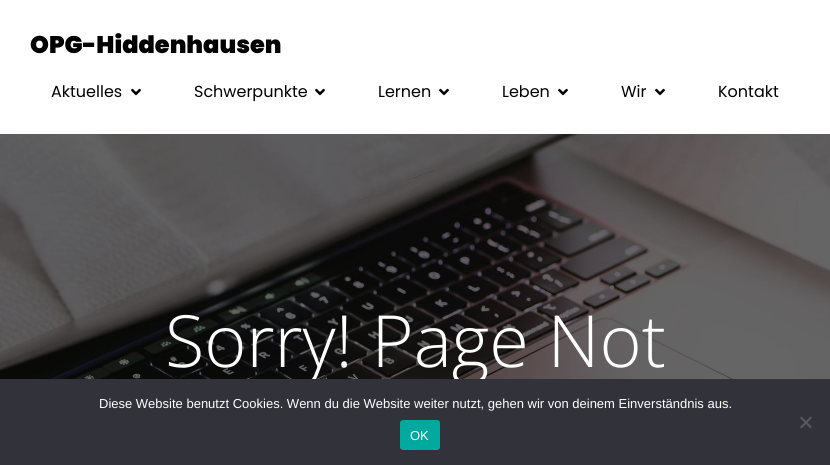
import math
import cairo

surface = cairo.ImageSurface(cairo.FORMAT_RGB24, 830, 465)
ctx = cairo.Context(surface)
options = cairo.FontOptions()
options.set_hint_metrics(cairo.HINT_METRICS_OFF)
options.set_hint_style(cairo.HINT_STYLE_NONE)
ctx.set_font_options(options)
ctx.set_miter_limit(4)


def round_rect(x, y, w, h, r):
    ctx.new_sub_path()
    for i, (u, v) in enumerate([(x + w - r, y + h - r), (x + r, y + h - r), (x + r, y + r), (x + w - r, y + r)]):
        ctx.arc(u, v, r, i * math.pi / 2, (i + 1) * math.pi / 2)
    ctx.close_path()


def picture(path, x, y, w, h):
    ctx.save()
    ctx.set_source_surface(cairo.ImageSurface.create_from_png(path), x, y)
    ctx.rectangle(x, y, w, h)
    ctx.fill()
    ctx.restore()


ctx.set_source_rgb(1, 1, 1)
ctx.paint()
ctx.select_font_face("Poppins Black")
ctx.set_font_size(24)
ctx.set_source_rgb(0, 0, 0)
ctx.move_to(30, 53)
ctx.show_text("OPG-Hiddenhausen")
ctx.select_font_face("Poppins")
ctx.set_font_size(16)
ctx.move_to(51, 97)
ctx.show_text("Aktuelles")
picture("img1.png", 131, 88, 10, 8)
ctx.move_to(194, 97)
ctx.show_text("Schwerpunkte")
picture("img1.png", 315, 88, 10, 8)
ctx.move_to(378, 97)
ctx.show_text("Lernen")
picture("img1.png", 439, 88, 10, 8)
ctx.move_to(502, 97)
ctx.show_text("Leben")
picture("img1.png", 558, 88, 10, 8)
ctx.move_to(621, 97)
ctx.show_text("Wir")
picture("img1.png", 655, 88, 10, 8)
ctx.move_to(718, 97)
ctx.show_text("Kontakt")
picture("img2.png", 0, 134, 830, 245)
ctx.select_font_face("Open Sans Light")
ctx.set_font_size(72)
ctx.set_source_rgb(1, 1, 1)
ctx.move_to(165, 367)
ctx.show_text("Sorry! Page Not")
ctx.set_source_rgb(0.196, 0.196, 0.227)
ctx.rectangle(0, 379, 830, 86)
ctx.fill()
ctx.select_font_face("Liberation Sans")
ctx.set_font_size(13)
ctx.set_source_rgb(1, 1, 1)
ctx.move_to(99, 408)
ctx.show_text("Diese Website benutzt Cookies. Wenn du die Website weiter nutzt, gehen wir von deinem Einverständnis aus.")
ctx.set_source_rgb(0.349, 0.349, 0.365)
ctx.new_path()
ctx.move_to(810.5, 416.5)
ctx.line_to(812, 418)
ctx.line_to(801.5, 428.5)
ctx.line_to(800, 427)
ctx.close_path()
ctx.fill()
ctx.new_path()
ctx.move_to(800, 418)
ctx.line_to(801.5, 416.5)
ctx.line_to(812, 427)
ctx.line_to(810.5, 428.5)
ctx.close_path()
ctx.fill()
ctx.set_source_rgb(0, 0.663, 0.616)
round_rect(400, 420, 40, 30, 3)
ctx.fill()
ctx.set_source_rgb(1, 1, 1)
ctx.move_to(410, 440)
ctx.show_text("OK")
surface.write_to_png("page.png")
